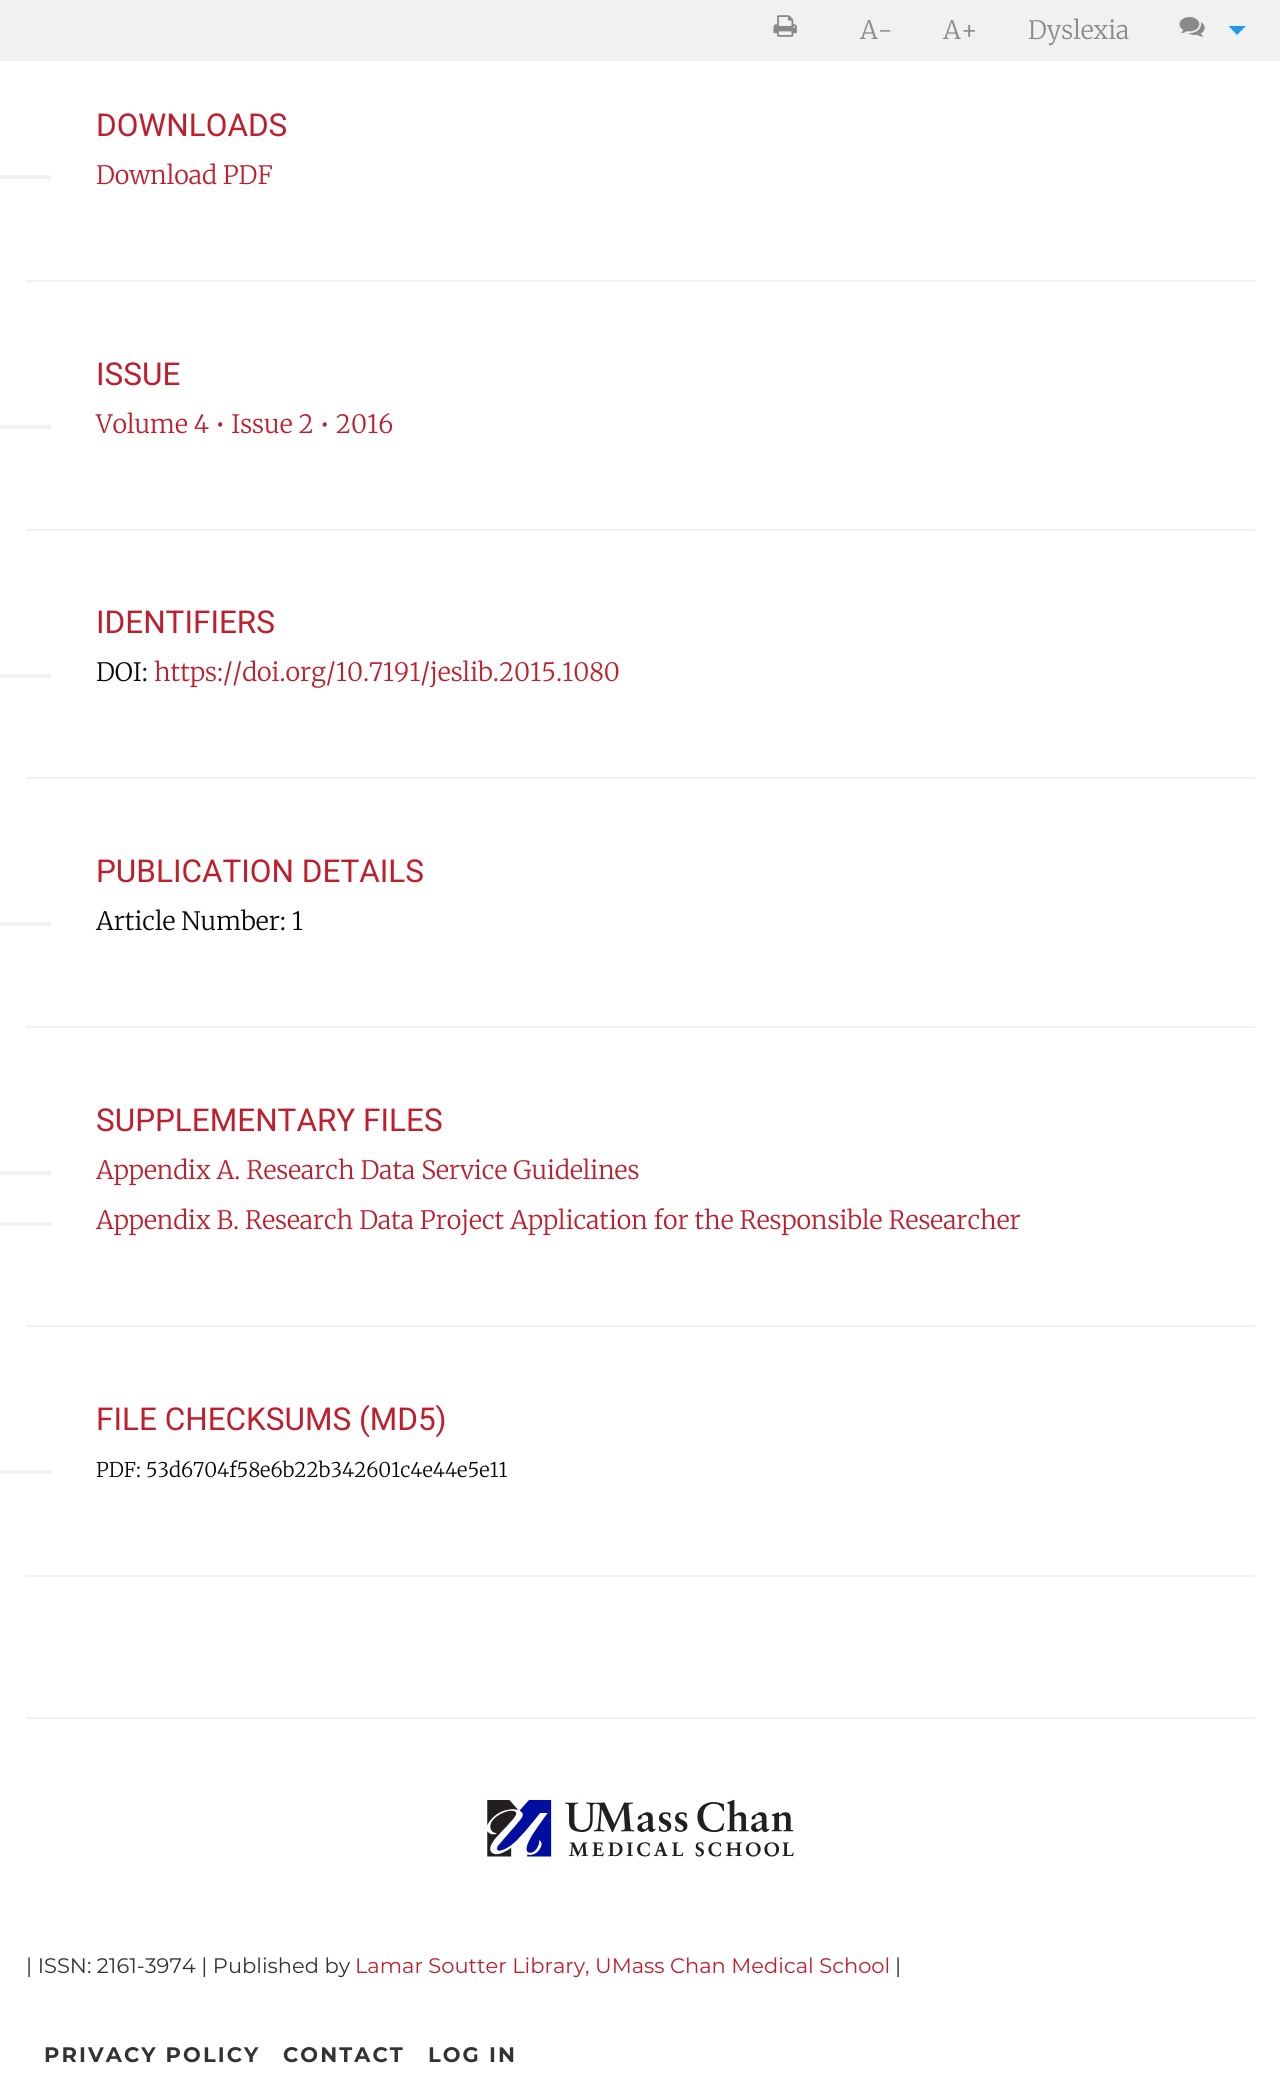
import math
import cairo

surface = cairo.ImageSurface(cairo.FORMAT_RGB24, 1280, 2079)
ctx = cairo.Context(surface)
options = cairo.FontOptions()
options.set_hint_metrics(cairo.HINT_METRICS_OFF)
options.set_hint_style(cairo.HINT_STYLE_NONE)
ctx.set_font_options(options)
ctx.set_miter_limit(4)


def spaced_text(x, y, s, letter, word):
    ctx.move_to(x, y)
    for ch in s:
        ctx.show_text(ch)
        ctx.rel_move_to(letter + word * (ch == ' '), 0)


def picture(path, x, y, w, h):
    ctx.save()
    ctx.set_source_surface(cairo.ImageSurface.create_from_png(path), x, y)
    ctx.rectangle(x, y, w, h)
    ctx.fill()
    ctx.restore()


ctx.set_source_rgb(1, 1, 1)
ctx.paint()
ctx.set_source_rgb(0.945, 0.945, 0.945)
ctx.rectangle(0, 0, 1280, 61)
ctx.fill()
picture("img1.png", 773, 15, 24, 22)
ctx.select_font_face("Merriweather Light")
ctx.set_font_size(25.2)
ctx.set_source_rgb(0.541, 0.541, 0.541)
ctx.move_to(860, 39)
ctx.show_text("A-")
ctx.move_to(943, 39)
ctx.show_text("A+")
ctx.move_to(1028, 39)
ctx.show_text("Dyslexia")
picture("img2.png", 1179, 17, 26, 20)
ctx.set_source_rgb(0.129, 0.6, 0.91)
ctx.new_path()
ctx.move_to(1228.5, 26)
ctx.line_to(1246, 26)
ctx.line_to(1237, 35)
ctx.close_path()
ctx.fill()
ctx.set_source_rgb(0.945, 0.945, 0.945)
ctx.rectangle(26, 280, 1229, 2)
ctx.fill()
ctx.select_font_face("Roboto")
ctx.set_font_size(31.5)
ctx.set_source_rgb(0.749, 0.118, 0.176)
ctx.move_to(96, 136)
ctx.show_text("DOWNLOADS")
ctx.set_source_rgb(0.945, 0.945, 0.945)
ctx.rectangle(0, 175, 51, 4)
ctx.fill()
ctx.select_font_face("Merriweather Light")
ctx.set_font_size(25.2)
ctx.set_source_rgb(0.749, 0.118, 0.176)
ctx.move_to(96, 184)
ctx.show_text("Download PDF")
ctx.set_source_rgb(0.945, 0.945, 0.945)
ctx.rectangle(26, 529, 1229, 2)
ctx.fill()
ctx.select_font_face("Roboto")
ctx.set_font_size(31.5)
ctx.set_source_rgb(0.749, 0.118, 0.176)
ctx.move_to(96, 385)
ctx.show_text("ISSUE")
ctx.set_source_rgb(0.945, 0.945, 0.945)
ctx.rectangle(0, 425, 51, 4)
ctx.fill()
ctx.select_font_face("Merriweather Light")
ctx.set_font_size(25.2)
ctx.set_source_rgb(0.749, 0.118, 0.176)
ctx.move_to(96, 433)
ctx.show_text("Volume 4 • Issue 2 • 2016")
ctx.set_source_rgb(0.945, 0.945, 0.945)
ctx.rectangle(26, 777, 1229, 2)
ctx.fill()
ctx.select_font_face("Roboto")
ctx.set_font_size(31.5)
ctx.set_source_rgb(0.749, 0.118, 0.176)
ctx.move_to(96, 633)
ctx.show_text("IDENTIFIERS")
ctx.set_source_rgb(0.945, 0.945, 0.945)
ctx.rectangle(0, 674, 51, 4)
ctx.fill()
ctx.select_font_face("Merriweather Light")
ctx.set_font_size(25.2)
ctx.set_source_rgb(0.039, 0.039, 0.039)
ctx.move_to(96, 681)
ctx.show_text("DOI:")
ctx.set_source_rgb(0.749, 0.118, 0.176)
ctx.move_to(154, 681)
ctx.show_text("https://doi.org/10.7191/jeslib.2015.1080")
ctx.set_source_rgb(0.945, 0.945, 0.945)
ctx.rectangle(26, 1026, 1229, 2)
ctx.fill()
ctx.select_font_face("Roboto")
ctx.set_font_size(31.5)
ctx.set_source_rgb(0.749, 0.118, 0.176)
ctx.move_to(96, 882)
ctx.show_text("PUBLICATION DETAILS")
ctx.set_source_rgb(0.945, 0.945, 0.945)
ctx.rectangle(0, 922, 51, 4)
ctx.fill()
ctx.select_font_face("Merriweather Light")
ctx.set_font_size(25.2)
ctx.set_source_rgb(0.039, 0.039, 0.039)
ctx.move_to(96, 930)
ctx.show_text("Article Number: 1")
ctx.set_source_rgb(0.945, 0.945, 0.945)
ctx.rectangle(26, 1325, 1229, 2)
ctx.fill()
ctx.select_font_face("Roboto")
ctx.set_font_size(31.5)
ctx.set_source_rgb(0.749, 0.118, 0.176)
ctx.move_to(96, 1131)
ctx.show_text("SUPPLEMENTARY FILES")
ctx.set_source_rgb(0.945, 0.945, 0.945)
ctx.rectangle(0, 1171, 51, 4)
ctx.fill()
ctx.select_font_face("Merriweather Light")
ctx.set_font_size(25.2)
ctx.set_source_rgb(0.749, 0.118, 0.176)
ctx.move_to(96, 1179)
ctx.show_text("Appendix A. Research Data Service Guidelines")
ctx.set_source_rgb(0.945, 0.945, 0.945)
ctx.rectangle(0, 1222, 51, 4)
ctx.fill()
ctx.set_source_rgb(0.749, 0.118, 0.176)
ctx.move_to(96, 1229)
ctx.show_text("Appendix B. Research Data Project Application for the Responsible Researcher")
ctx.set_source_rgb(0.945, 0.945, 0.945)
ctx.rectangle(26, 1575, 1229, 2)
ctx.fill()
ctx.select_font_face("Roboto")
ctx.set_font_size(31.5)
ctx.set_source_rgb(0.749, 0.118, 0.176)
ctx.move_to(96, 1430)
ctx.show_text("FILE CHECKSUMS (MD5)")
ctx.set_source_rgb(0.945, 0.945, 0.945)
ctx.rectangle(0, 1470, 51, 4)
ctx.fill()
ctx.select_font_face("Merriweather Light")
ctx.set_font_size(20.2)
ctx.set_source_rgb(0.039, 0.039, 0.039)
ctx.move_to(96, 1477)
ctx.show_text("PDF: 53d6704f58e6b22b342601c4e44e5e11")
ctx.set_source_rgb(0.945, 0.945, 0.945)
ctx.rectangle(26, 1717, 1229, 2)
ctx.fill()
picture("img3.png", 487, 1799, 307, 58)
ctx.select_font_face("Montserrat")
ctx.set_font_size(21)
ctx.set_source_rgb(0.2, 0.2, 0.2)
ctx.move_to(26, 1973)
ctx.show_text("| ISSN: 2161-3974 | Published by")
ctx.set_source_rgb(0.749, 0.118, 0.176)
ctx.move_to(355, 1973)
ctx.show_text("Lamar Soutter Library, UMass Chan Medical School")
ctx.set_source_rgb(0.2, 0.2, 0.2)
ctx.move_to(895, 1973)
ctx.show_text("|")
ctx.select_font_face("Montserrat", cairo.FONT_SLANT_NORMAL, cairo.FONT_WEIGHT_BOLD)
spaced_text(44, 2062, "PRIVACY POLICY", 2.1, 0)
spaced_text(283, 2062, "CONTACT", 2.1, 0)
spaced_text(428, 2062, "LOG IN", 2.1, 0)
surface.write_to_png("page.png")
